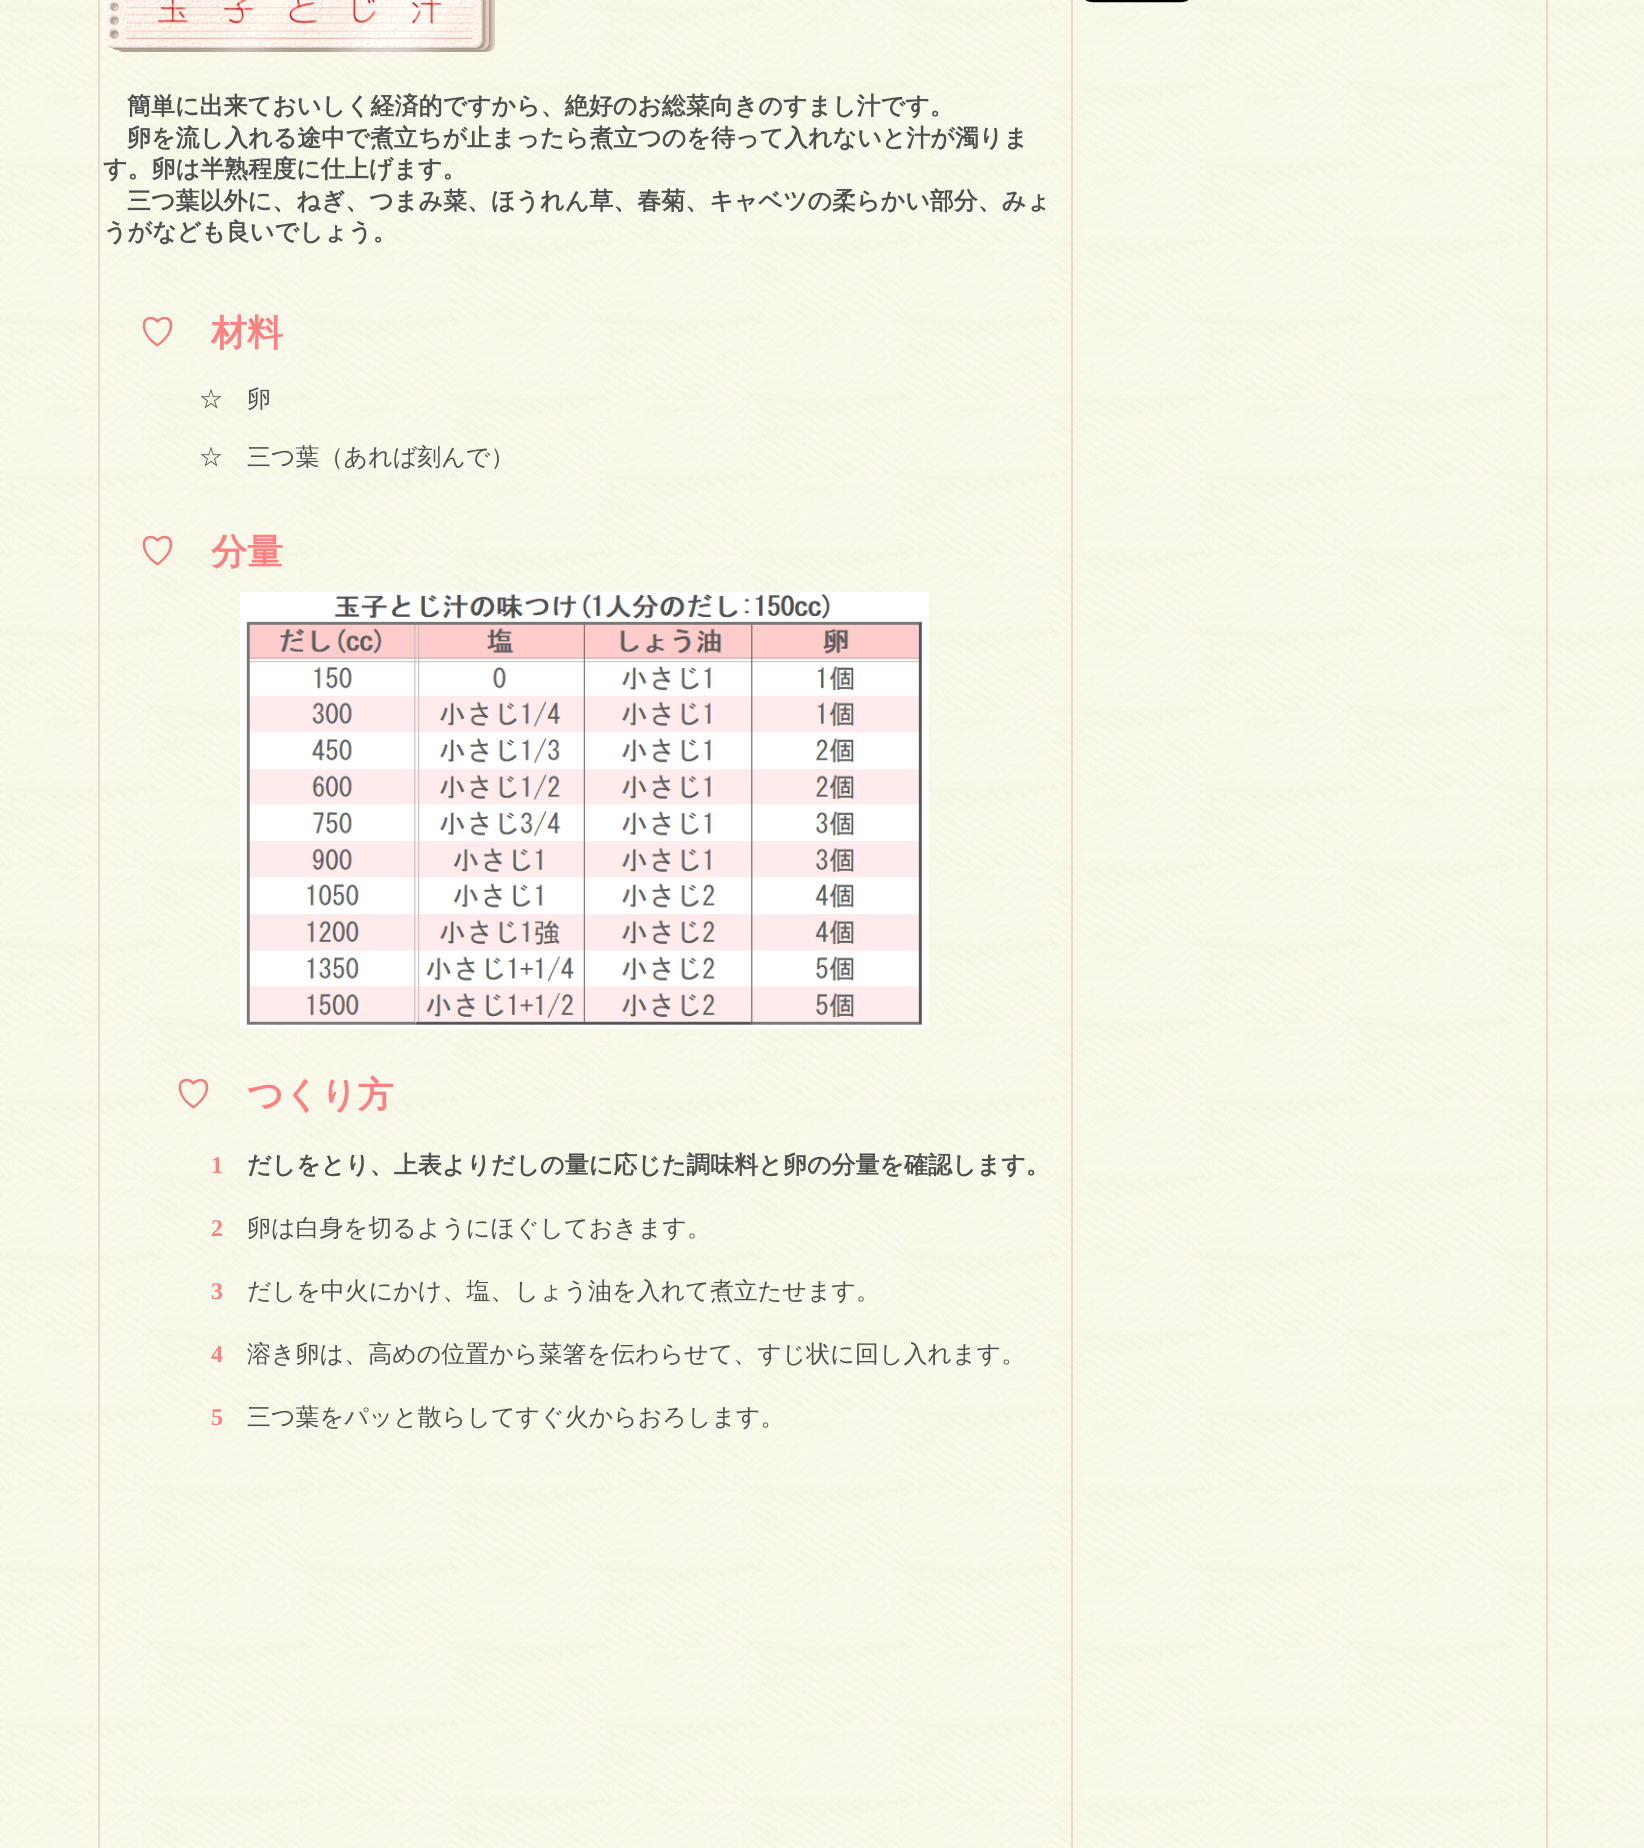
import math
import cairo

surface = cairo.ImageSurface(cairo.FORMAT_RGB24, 1644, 1848)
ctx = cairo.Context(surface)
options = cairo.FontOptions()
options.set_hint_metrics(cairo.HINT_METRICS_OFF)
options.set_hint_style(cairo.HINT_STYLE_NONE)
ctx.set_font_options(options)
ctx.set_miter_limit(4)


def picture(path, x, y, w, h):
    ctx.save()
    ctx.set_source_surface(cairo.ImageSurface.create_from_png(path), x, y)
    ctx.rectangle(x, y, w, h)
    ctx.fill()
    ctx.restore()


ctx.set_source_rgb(1, 1, 1)
ctx.paint()
picture("img1.png", 0, 0, 1644, 1848)
ctx.rectangle(99, -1, 1448, 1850)
ctx.set_source_rgb(0.91, 0.847, 0.812)
ctx.stroke()
picture("img2.png", 1085, 0, 104, 3)
ctx.rectangle(1071, 0, 2, 1848)
ctx.fill()
picture("img3.png", 103, 0, 392, 52)
ctx.select_font_face("WenQuanYi Zen Hei", cairo.FONT_SLANT_NORMAL, cairo.FONT_WEIGHT_BOLD)
ctx.set_font_size(24)
ctx.set_source_rgb(0.314, 0.314, 0.314)
ctx.move_to(127, 114)
ctx.show_text("簡単に出来ておいしく経済的ですから、絶好のお総菜向きのすまし汁です。")
ctx.move_to(127, 146)
ctx.show_text("卵を流し入れる途中で煮立ちが止まったら煮立つのを待って入れないと汁が濁りま")
ctx.move_to(103, 177)
ctx.show_text("す。卵は半熟程度に仕上げます。")
ctx.move_to(127, 209)
ctx.show_text("三つ葉以外に、ねぎ、つまみ菜、ほうれん草、春菊、キャベツの柔らかい部分、みょ")
ctx.move_to(103, 240)
ctx.show_text("うがなども良いでしょう。")
ctx.set_font_size(36)
ctx.set_source_rgb(0.925, 0.506, 0.49)
ctx.move_to(139, 345)
ctx.show_text("♡")
ctx.set_source_rgb(1, 0.502, 0.502)
ctx.move_to(211, 345)
ctx.show_text("材料")
ctx.select_font_face("WenQuanYi Zen Hei Medium")
ctx.set_font_size(24)
ctx.set_source_rgb(0.314, 0.314, 0.314)
ctx.move_to(199, 407)
ctx.show_text("☆　卵")
ctx.move_to(199, 465)
ctx.show_text("☆　三つ葉（あれば刻んで）")
ctx.select_font_face("WenQuanYi Zen Hei", cairo.FONT_SLANT_NORMAL, cairo.FONT_WEIGHT_BOLD)
ctx.set_font_size(36)
ctx.set_source_rgb(0.925, 0.506, 0.49)
ctx.move_to(139, 564)
ctx.show_text("♡")
ctx.set_source_rgb(1, 0.502, 0.502)
ctx.move_to(211, 564)
ctx.show_text("分量")
picture("img4.png", 240, 592, 689, 437)
ctx.set_source_rgb(0.925, 0.506, 0.49)
ctx.move_to(175, 1107)
ctx.show_text("♡")
ctx.set_source_rgb(1, 0.502, 0.502)
ctx.move_to(247, 1107)
ctx.show_text("つくり方")
ctx.select_font_face("Liberation Serif", cairo.FONT_SLANT_NORMAL, cairo.FONT_WEIGHT_BOLD)
ctx.set_font_size(24)
ctx.move_to(211, 1173)
ctx.show_text("1")
ctx.select_font_face("WenQuanYi Zen Hei", cairo.FONT_SLANT_NORMAL, cairo.FONT_WEIGHT_BOLD)
ctx.set_source_rgb(0.314, 0.314, 0.314)
ctx.move_to(247, 1173)
ctx.show_text("だしをとり、上表よりだしの量に応じた調味料と卵の分量を確認します。")
ctx.select_font_face("Liberation Serif", cairo.FONT_SLANT_NORMAL, cairo.FONT_WEIGHT_BOLD)
ctx.set_source_rgb(1, 0.502, 0.502)
ctx.move_to(211, 1236)
ctx.show_text("2")
ctx.select_font_face("WenQuanYi Zen Hei Medium")
ctx.set_source_rgb(0.314, 0.314, 0.314)
ctx.move_to(247, 1236)
ctx.show_text("卵は白身を切るようにほぐしておきます。")
ctx.select_font_face("Liberation Serif", cairo.FONT_SLANT_NORMAL, cairo.FONT_WEIGHT_BOLD)
ctx.set_source_rgb(1, 0.502, 0.502)
ctx.move_to(211, 1299)
ctx.show_text("3")
ctx.select_font_face("WenQuanYi Zen Hei Medium")
ctx.set_source_rgb(0.314, 0.314, 0.314)
ctx.move_to(247, 1299)
ctx.show_text("だしを中火にかけ、塩、しょう油を入れて煮立たせます。")
ctx.select_font_face("Liberation Serif", cairo.FONT_SLANT_NORMAL, cairo.FONT_WEIGHT_BOLD)
ctx.set_source_rgb(1, 0.502, 0.502)
ctx.move_to(211, 1362)
ctx.show_text("4")
ctx.select_font_face("WenQuanYi Zen Hei Medium")
ctx.set_source_rgb(0.314, 0.314, 0.314)
ctx.move_to(247, 1362)
ctx.show_text("溶き卵は、高めの位置から菜箸を伝わらせて、すじ状に回し入れます。")
ctx.select_font_face("Liberation Serif", cairo.FONT_SLANT_NORMAL, cairo.FONT_WEIGHT_BOLD)
ctx.set_source_rgb(1, 0.502, 0.502)
ctx.move_to(211, 1425)
ctx.show_text("5")
ctx.select_font_face("WenQuanYi Zen Hei Medium")
ctx.set_source_rgb(0.314, 0.314, 0.314)
ctx.move_to(247, 1425)
ctx.show_text("三つ葉をパッと散らしてすぐ火からおろします。")
surface.write_to_png("page.png")
